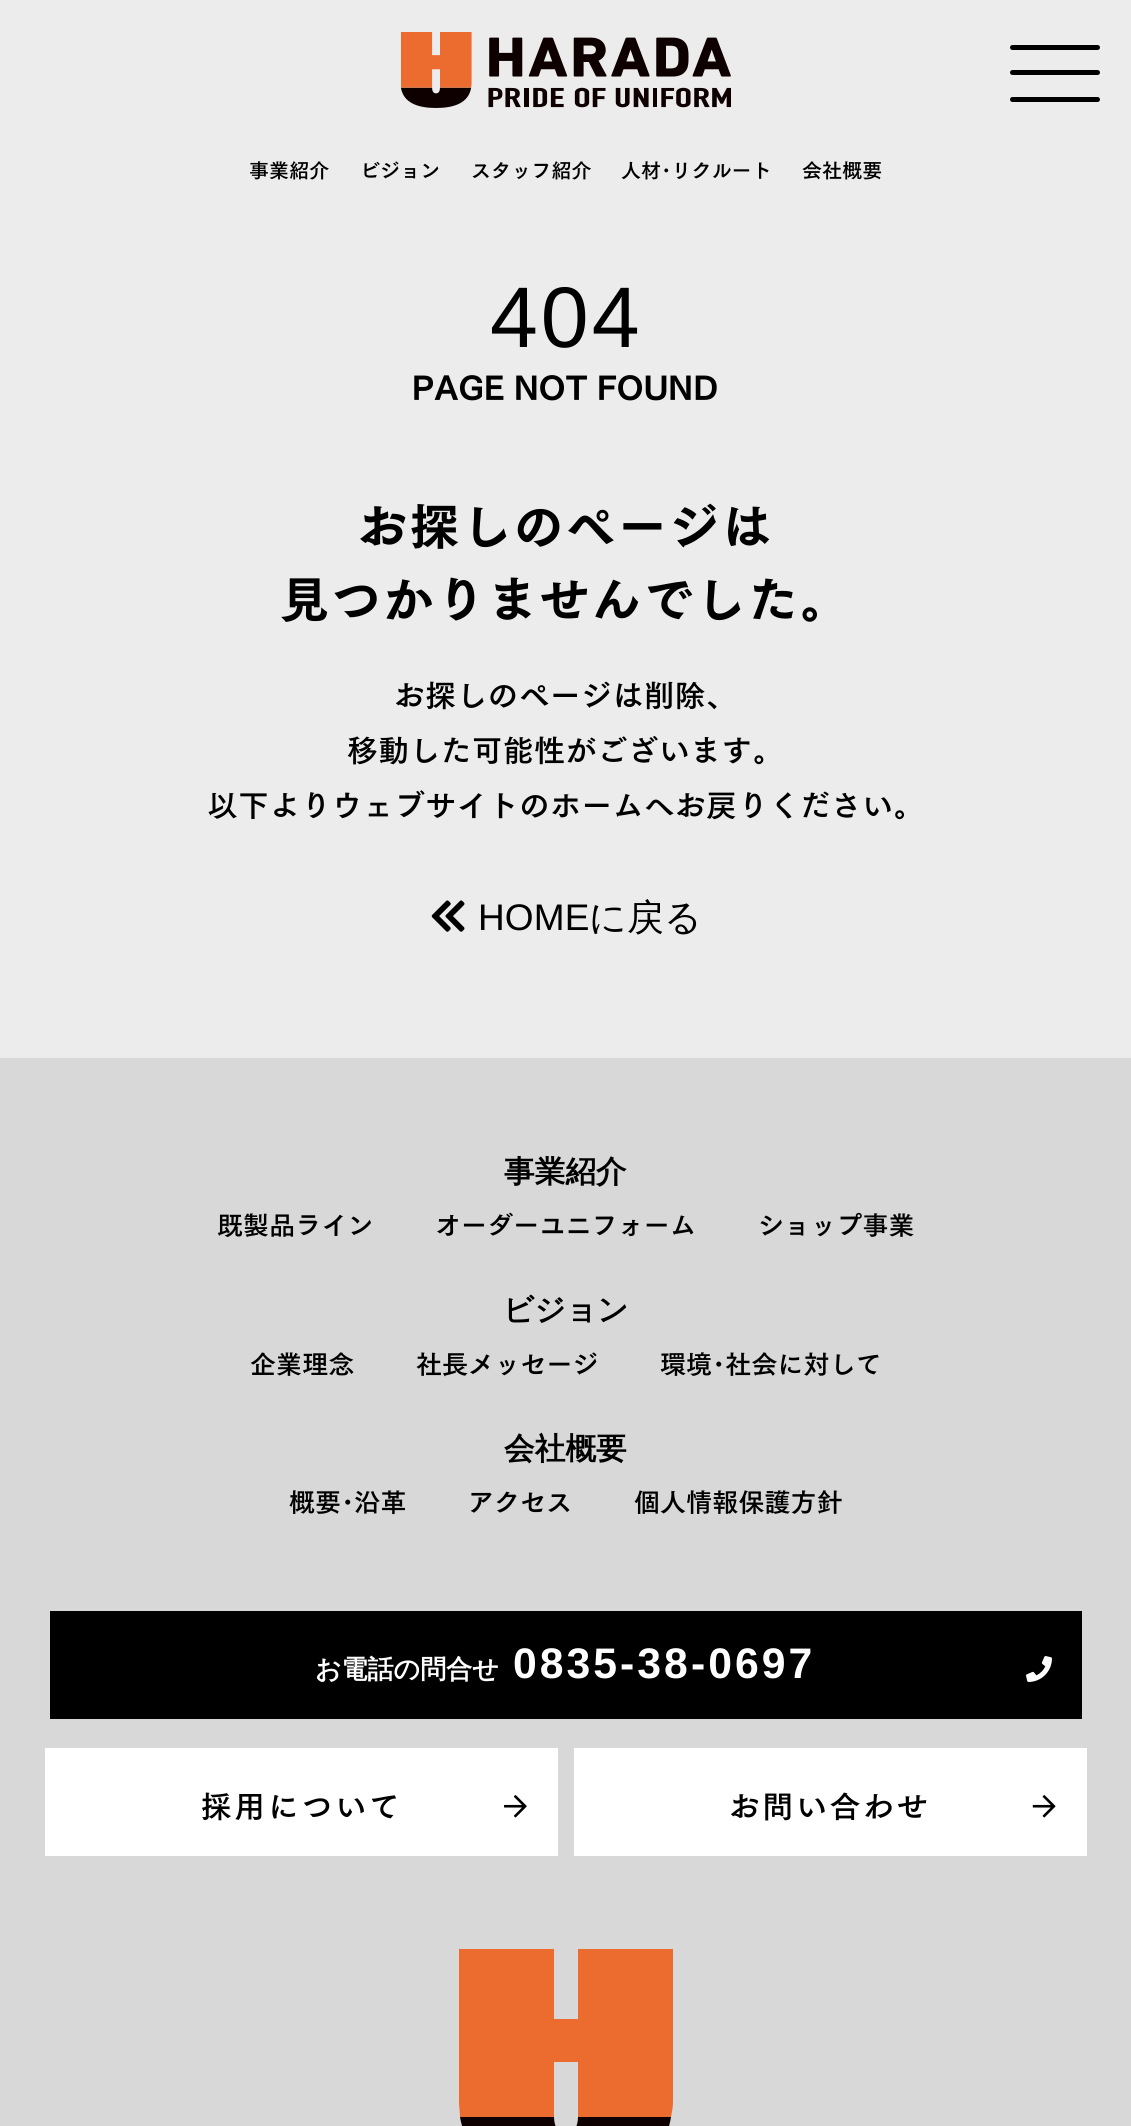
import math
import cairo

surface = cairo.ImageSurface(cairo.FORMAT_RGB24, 1131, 2126)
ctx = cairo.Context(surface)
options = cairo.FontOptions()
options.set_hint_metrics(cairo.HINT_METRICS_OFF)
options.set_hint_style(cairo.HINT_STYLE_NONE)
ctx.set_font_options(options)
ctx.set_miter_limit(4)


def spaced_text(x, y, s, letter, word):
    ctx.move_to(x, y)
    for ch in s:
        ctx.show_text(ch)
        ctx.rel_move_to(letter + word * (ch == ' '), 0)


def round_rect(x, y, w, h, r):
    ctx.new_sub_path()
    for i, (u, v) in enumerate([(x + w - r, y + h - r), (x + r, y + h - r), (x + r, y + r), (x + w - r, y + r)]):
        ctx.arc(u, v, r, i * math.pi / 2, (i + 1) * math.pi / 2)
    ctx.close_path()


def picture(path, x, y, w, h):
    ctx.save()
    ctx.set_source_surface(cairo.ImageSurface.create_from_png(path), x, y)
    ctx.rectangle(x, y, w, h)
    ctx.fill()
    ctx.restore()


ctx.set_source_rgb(0.922, 0.922, 0.922)
ctx.paint()
ctx.set_source_rgb(0, 0, 0)
round_rect(1010, 45, 90, 5, 2.5)
ctx.fill()
round_rect(1010, 70, 90, 5, 2.5)
ctx.fill()
round_rect(1010, 97, 90, 5, 2.5)
ctx.fill()
picture("img1.png", 401, 32, 330, 76)
ctx.select_font_face("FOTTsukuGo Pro", cairo.FONT_SLANT_NORMAL, cairo.FONT_WEIGHT_BOLD)
ctx.set_font_size(20)
spaced_text(249, 178, "事業紹介", 0.1, 0)
spaced_text(360, 178, "ビジョン", 0.1, 0)
spaced_text(471, 178, "スタッフ紹介", 0.1, 0)
spaced_text(621, 178, "人材･リクルート", 0.1, 0)
spaced_text(802, 178, "会社概要", 0.1, 0)
ctx.select_font_face("Liberation Sans")
ctx.set_font_size(86)
spaced_text(490, 347, "404", 3, 0)
ctx.select_font_face("FOTTsukuGo Pro ExtraBold")
ctx.set_font_size(30.6)
spaced_text(412, 399, "PAGE NOT FOUND", 0.1, 0)
ctx.set_font_size(49)
spaced_text(358, 545, "お探しのページは", 3, 0)
spaced_text(280, 618, "見つかりませんでした。", 3, 0)
ctx.select_font_face("FOTTsukuGo Pro", cairo.FONT_SLANT_NORMAL, cairo.FONT_WEIGHT_BOLD)
ctx.set_font_size(30.6)
spaced_text(394, 707, "お探しのページは削除、", 0.6, 0)
spaced_text(347, 762, "移動した可能性がございます。", 0.6, 0)
spaced_text(207, 817, "以下よりウェブサイトのホームへお戻りください。", 0.6, 0)
picture("img2.png", 431, 900, 34, 32)
ctx.select_font_face("Liberation Sans")
ctx.set_font_size(37)
spaced_text(478, 930, "HOME", 0.1, 0)
ctx.select_font_face("WenQuanYi Zen Hei Medium")
spaced_text(589, 930, "に戻る", 0.1, 0)
ctx.set_source_rgb(0.847, 0.847, 0.847)
ctx.rectangle(0, 1058, 1131, 1068)
ctx.fill()
ctx.select_font_face("WenQuanYi Zen Hei", cairo.FONT_SLANT_NORMAL, cairo.FONT_WEIGHT_BOLD)
ctx.set_font_size(30.6)
ctx.set_source_rgb(0, 0, 0)
spaced_text(504, 1182, "事業紹介", 0.1, 0)
ctx.select_font_face("FOTTsukuGo Pro", cairo.FONT_SLANT_NORMAL, cairo.FONT_WEIGHT_BOLD)
ctx.set_font_size(26)
spaced_text(217, 1235, "既製品ライン", 0.1, 0)
spaced_text(435, 1235, "オーダーユニフォーム", 0.1, 0)
spaced_text(758, 1235, "ショップ事業", 0.1, 0)
ctx.select_font_face("WenQuanYi Zen Hei", cairo.FONT_SLANT_NORMAL, cairo.FONT_WEIGHT_BOLD)
ctx.set_font_size(30.6)
spaced_text(503, 1320, "ビジョン", 0.1, 0)
ctx.select_font_face("FOTTsukuGo Pro", cairo.FONT_SLANT_NORMAL, cairo.FONT_WEIGHT_BOLD)
ctx.set_font_size(26)
spaced_text(250, 1374, "企業理念", 0.1, 0)
spaced_text(416, 1374, "社長メッセージ", 0.1, 0)
spaced_text(660, 1374, "環境･社会に対して", 0.1, 0)
ctx.select_font_face("WenQuanYi Zen Hei", cairo.FONT_SLANT_NORMAL, cairo.FONT_WEIGHT_BOLD)
ctx.set_font_size(30.6)
spaced_text(504, 1459, "会社概要", 0.1, 0)
ctx.select_font_face("FOTTsukuGo Pro", cairo.FONT_SLANT_NORMAL, cairo.FONT_WEIGHT_BOLD)
ctx.set_font_size(26)
spaced_text(289, 1512, "概要･沿革", 0.1, 0)
spaced_text(468, 1512, "アクセス", 0.1, 0)
spaced_text(634, 1512, "個人情報保護方針", 0.1, 0)
ctx.rectangle(50, 1611, 1032, 108)
ctx.fill()
ctx.select_font_face("WenQuanYi Zen Hei", cairo.FONT_SLANT_NORMAL, cairo.FONT_WEIGHT_BOLD)
ctx.set_source_rgb(1, 1, 1)
ctx.move_to(315, 1678)
ctx.show_text("お電話の問合せ")
ctx.select_font_face("Liberation Sans", cairo.FONT_SLANT_NORMAL, cairo.FONT_WEIGHT_BOLD)
ctx.set_font_size(42.75)
spaced_text(513, 1678, "0835-38-0697", 3, 0)
picture("img3.png", 1026, 1656, 26, 26)
ctx.rectangle(45, 1748, 513, 108)
ctx.fill()
ctx.select_font_face("FOTTsukuGo Pro", cairo.FONT_SLANT_NORMAL, cairo.FONT_WEIGHT_BOLD)
ctx.set_font_size(30.6)
ctx.set_source_rgb(0, 0, 0)
spaced_text(201, 1818, "採用について", 3, 0)
picture("img4.png", 504, 1795, 23, 23)
ctx.set_source_rgb(1, 1, 1)
ctx.rectangle(574, 1748, 513, 108)
ctx.fill()
ctx.set_source_rgb(0, 0, 0)
spaced_text(729, 1818, "お問い合わせ", 3, 0)
picture("img5.png", 1032, 1795, 24, 23)
ctx.save()
ctx.rectangle(459, 1949, 214, 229)
ctx.clip()
ctx.set_source_rgb(0.925, 0.42, 0.18)
ctx.new_path()
ctx.move_to(554, 2062)
ctx.line_to(578, 2062)
ctx.line_to(578, 2117)
ctx.line_to(671, 2117)
ctx.curve_to(672, 2112, 673, 2107, 673, 2102)
ctx.line_to(673, 1948)
ctx.line_to(578, 1948)
ctx.line_to(578, 2019)
ctx.line_to(554, 2019)
ctx.line_to(554, 1948)
ctx.line_to(459, 1948)
ctx.line_to(459, 2102)
ctx.curve_to(459, 2107, 460, 2112, 460, 2117)
ctx.line_to(554, 2117)
ctx.close_path()
ctx.fill()
ctx.restore()
ctx.set_source_rgb(0.055, 0, 0)
ctx.new_path()
ctx.move_to(578, 2117)
ctx.curve_to(578, 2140, 554, 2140, 554, 2117)
ctx.line_to(460, 2117)
ctx.curve_to(468, 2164, 512, 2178, 566, 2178)
ctx.curve_to(619, 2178, 664, 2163, 671, 2117)
ctx.close_path()
ctx.fill()
surface.write_to_png("page.png")
